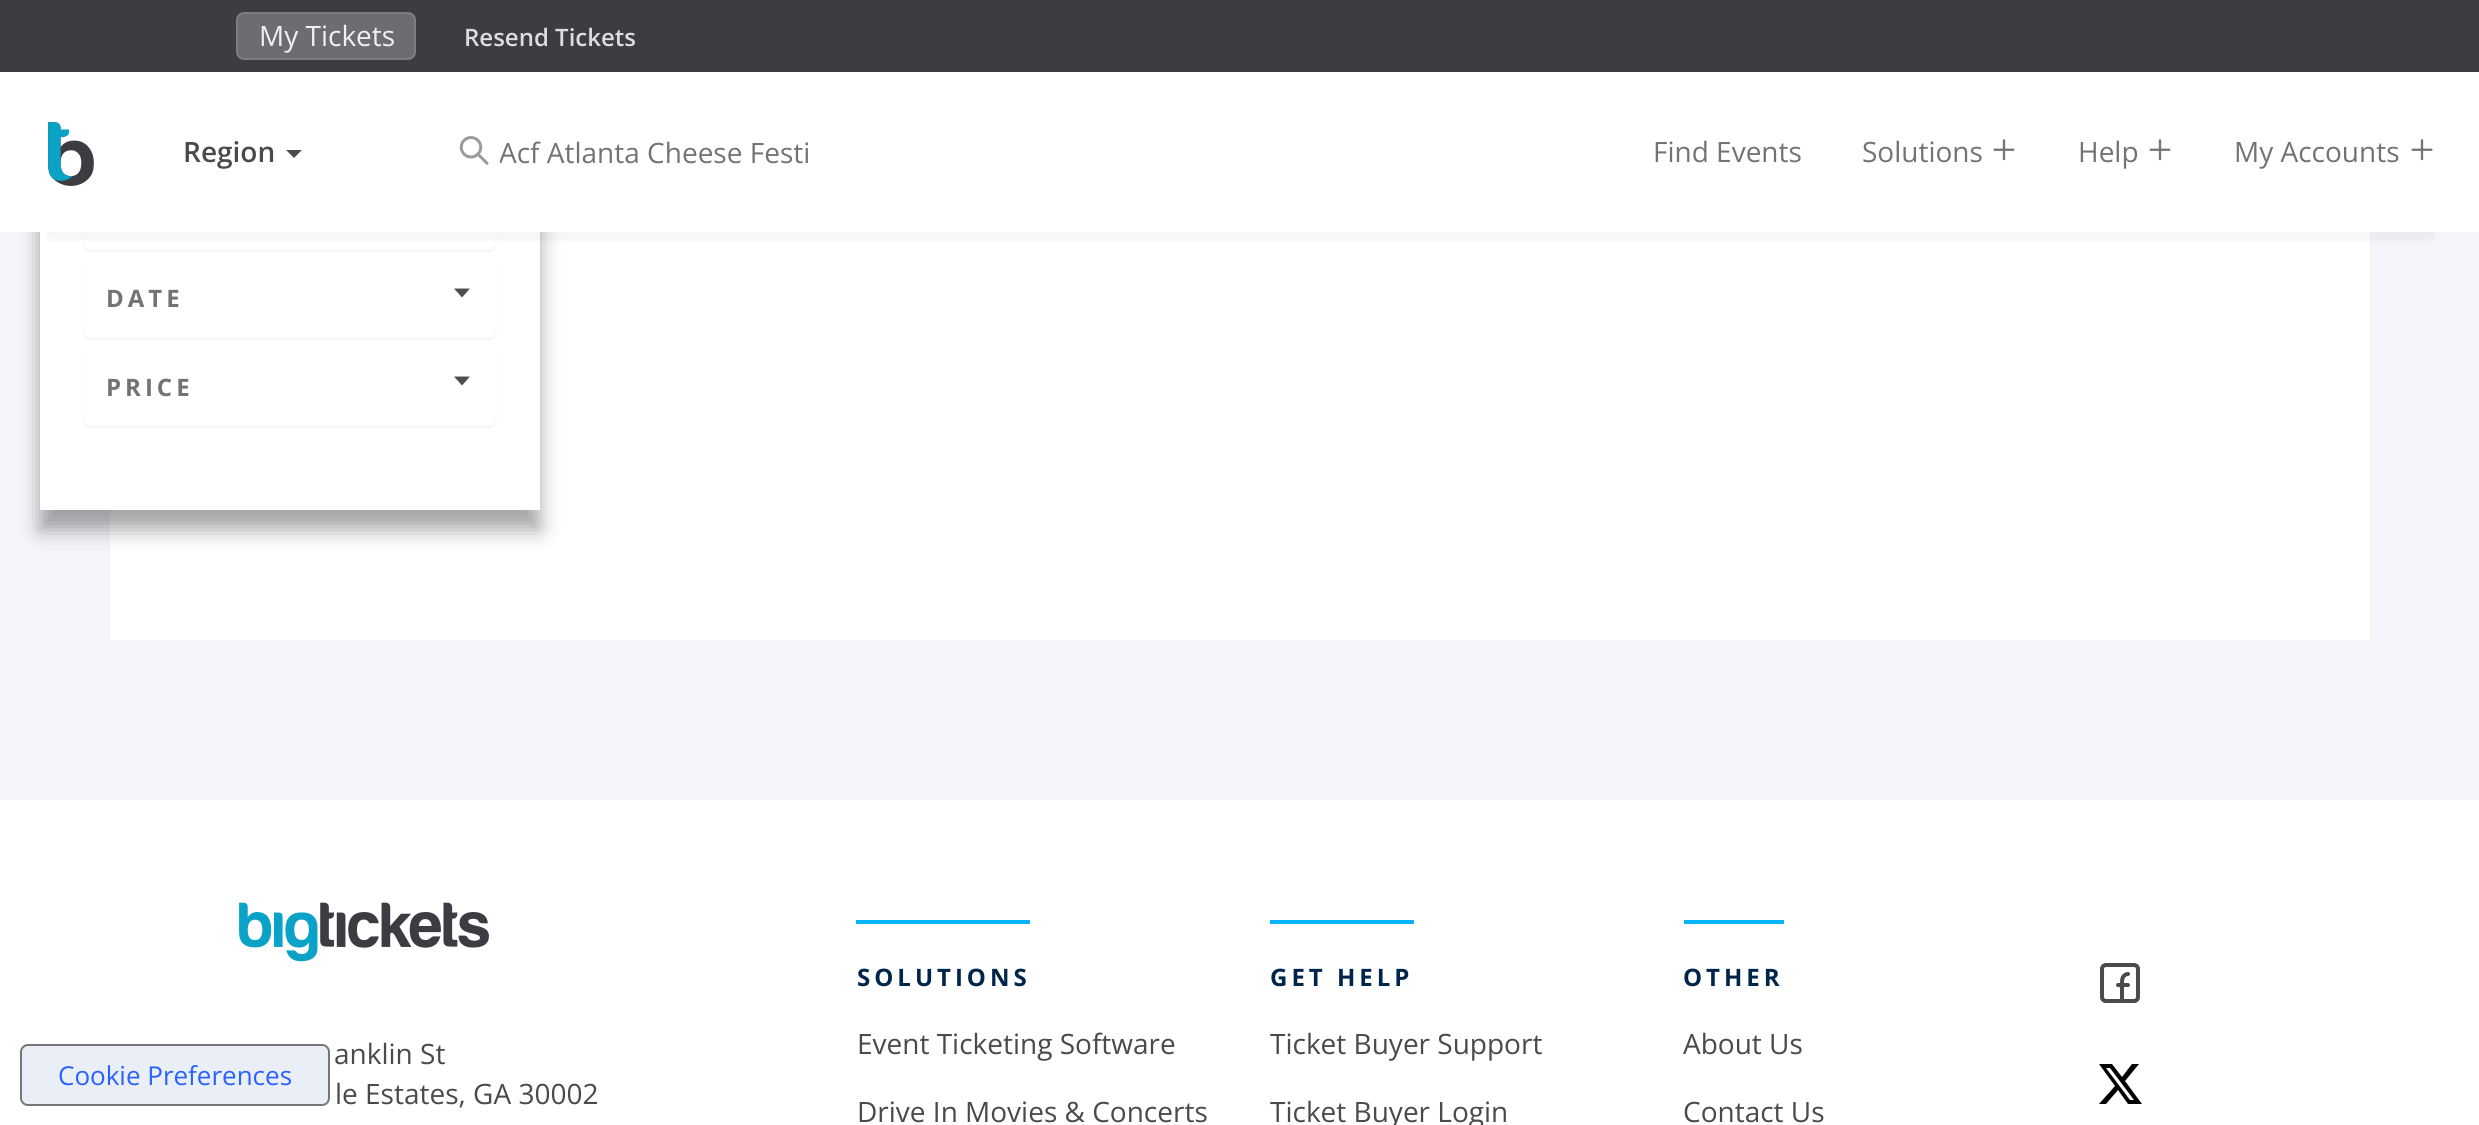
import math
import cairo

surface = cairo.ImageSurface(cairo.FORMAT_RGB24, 2479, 1125)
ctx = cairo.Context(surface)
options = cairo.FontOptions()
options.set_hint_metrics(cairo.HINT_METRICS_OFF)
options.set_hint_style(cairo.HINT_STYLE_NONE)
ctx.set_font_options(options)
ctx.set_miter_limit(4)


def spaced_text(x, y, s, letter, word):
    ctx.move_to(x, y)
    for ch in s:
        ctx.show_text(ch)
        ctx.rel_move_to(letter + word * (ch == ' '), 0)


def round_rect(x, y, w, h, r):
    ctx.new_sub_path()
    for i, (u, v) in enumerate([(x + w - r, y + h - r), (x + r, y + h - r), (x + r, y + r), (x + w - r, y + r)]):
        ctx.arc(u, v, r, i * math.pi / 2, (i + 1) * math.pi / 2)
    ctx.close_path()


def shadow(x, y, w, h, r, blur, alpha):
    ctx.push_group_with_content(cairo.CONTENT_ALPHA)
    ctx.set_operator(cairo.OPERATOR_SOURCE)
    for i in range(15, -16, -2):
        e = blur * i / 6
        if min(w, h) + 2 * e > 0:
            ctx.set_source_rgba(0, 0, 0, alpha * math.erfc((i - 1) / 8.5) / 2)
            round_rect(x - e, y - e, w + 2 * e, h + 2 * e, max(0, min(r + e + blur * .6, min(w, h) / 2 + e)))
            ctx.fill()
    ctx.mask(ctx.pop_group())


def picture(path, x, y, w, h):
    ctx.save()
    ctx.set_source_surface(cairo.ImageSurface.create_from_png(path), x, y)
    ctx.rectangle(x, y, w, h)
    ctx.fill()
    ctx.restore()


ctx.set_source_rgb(0.957, 0.957, 0.98)
ctx.paint()
ctx.set_source_rgb(1, 1, 1)
ctx.rectangle(110, 232, 2260, 408)
ctx.fill()
ctx.set_source_rgb(0, 0, 0)
shadow(40, 58, 500, 472, 0, 10, 0.35)
ctx.set_source_rgb(0.235, 0.239, 0.259)
ctx.rectangle(0, 0, 2479, 72)
ctx.fill()
ctx.set_source_rgb(0.424, 0.427, 0.447)
round_rect(237, 13, 178, 46, 7)
ctx.fill_preserve()
ctx.set_source_rgb(0.486, 0.49, 0.51)
ctx.stroke()
ctx.select_font_face("Open Sans")
ctx.set_font_size(28)
ctx.set_source_rgb(0.941, 0.941, 0.941)
ctx.move_to(259, 46)
ctx.show_text("My Tickets")
ctx.select_font_face("Open Sans SemiBold")
ctx.set_font_size(24)
ctx.set_source_rgb(0.867, 0.867, 0.867)
ctx.move_to(464, 46)
ctx.show_text("Resend Tickets")
ctx.set_source_rgb(1, 1, 1)
ctx.rectangle(40, 232, 500, 278)
ctx.fill()
ctx.set_source_rgb(0, 0, 0)
shadow(84, 174, 412, 78, 8, 1, 0.05)
ctx.set_source_rgb(1, 1, 1)
round_rect(84, 172, 412, 78, 8)
ctx.fill()
ctx.rectangle(0, 72, 2479, 160)
ctx.fill()
ctx.set_source_rgb(0, 0, 0)
shadow(84, 262, 412, 78, 8, 1, 0.05)
ctx.set_source_rgb(1, 1, 1)
round_rect(84, 260, 412, 78, 8)
ctx.fill()
ctx.save()
ctx.rectangle(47, 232, 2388, 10)
ctx.clip()
ctx.set_source_rgb(0, 0, 0)
shadow(48, 136, 2386, 80, 0, 20, 0.2)
ctx.restore()
picture("img1.png", 48, 122, 46, 64)
ctx.set_font_size(28)
ctx.set_source_rgb(0.29, 0.29, 0.29)
ctx.move_to(183, 162)
ctx.show_text("Region")
ctx.set_source_rgb(0.302, 0.302, 0.302)
ctx.new_path()
ctx.move_to(286, 150)
ctx.line_to(302, 150)
ctx.line_to(294, 158)
ctx.close_path()
ctx.fill()
picture("img2.png", 459, 136, 30, 29)
ctx.save()
ctx.rectangle(500, 134, 314, 38)
ctx.clip()
ctx.select_font_face("Open Sans")
ctx.set_source_rgb(0.451, 0.451, 0.451)
ctx.move_to(499, 163)
ctx.show_text("Acf Atlanta Cheese Festi")
ctx.restore()
ctx.select_font_face("Open Sans")
ctx.set_source_rgb(0.451, 0.451, 0.451)
ctx.move_to(1653, 162)
ctx.show_text("Find Events")
ctx.move_to(1862, 162)
ctx.show_text("Solutions")
picture("img3.png", 1993, 139, 22, 22)
ctx.move_to(2078, 162)
ctx.show_text("Help")
picture("img3.png", 2149, 139, 22, 22)
ctx.move_to(2234, 162)
ctx.show_text("My Accounts")
picture("img3.png", 2411, 139, 22, 22)
ctx.select_font_face("Open Sans", cairo.FONT_SLANT_NORMAL, cairo.FONT_WEIGHT_BOLD)
ctx.set_font_size(24)
spaced_text(106, 307, "DATE", 4, 0)
ctx.set_source_rgb(0.302, 0.302, 0.302)
ctx.new_path()
ctx.move_to(454, 288.5)
ctx.line_to(470, 288.5)
ctx.line_to(462, 297.5)
ctx.close_path()
ctx.fill()
ctx.set_source_rgb(0, 0, 0)
shadow(84, 350, 412, 78, 8, 1, 0.05)
ctx.set_source_rgb(1, 1, 1)
round_rect(84, 348, 412, 78, 8)
ctx.fill()
ctx.set_source_rgb(0.451, 0.451, 0.451)
spaced_text(106, 396, "PRICE", 4, 0)
ctx.set_source_rgb(0.302, 0.302, 0.302)
ctx.new_path()
ctx.move_to(454, 376.5)
ctx.line_to(470, 376.5)
ctx.line_to(462, 385.5)
ctx.close_path()
ctx.fill()
ctx.set_source_rgb(1, 1, 1)
ctx.rectangle(0, 800, 2479, 325)
ctx.fill()
ctx.set_source_rgb(0.914, 0.933, 0.965)
round_rect(21, 1045, 308, 60, 7)
ctx.fill_preserve()
ctx.set_source_rgb(0.455, 0.467, 0.459)
ctx.stroke()
ctx.select_font_face("Open Sans")
ctx.set_font_size(26)
ctx.set_source_rgb(0.161, 0.384, 1)
ctx.move_to(58, 1085)
ctx.show_text("Cookie Preferences")
picture("img4.png", 239, 902, 250, 60)
ctx.set_font_size(28)
ctx.set_source_rgb(0.29, 0.29, 0.29)
ctx.move_to(334, 1064)
ctx.show_text("anklin St")
ctx.move_to(335, 1104)
ctx.show_text("le Estates, GA 30002")
ctx.set_source_rgb(0.027, 0.706, 0.965)
ctx.rectangle(856, 920, 174, 4)
ctx.fill()
ctx.select_font_face("Open Sans", cairo.FONT_SLANT_NORMAL, cairo.FONT_WEIGHT_BOLD)
ctx.set_font_size(24)
ctx.set_source_rgb(0, 0.145, 0.29)
spaced_text(857, 986, "SOLUTIONS", 4, 0)
ctx.select_font_face("Open Sans")
ctx.set_font_size(28)
ctx.set_source_rgb(0.29, 0.29, 0.29)
ctx.move_to(857, 1054)
ctx.show_text("Event Ticketing Software")
ctx.move_to(857, 1122)
ctx.show_text("Drive In Movies & Concerts")
ctx.set_source_rgb(0.027, 0.706, 0.965)
ctx.rectangle(1270, 920, 144, 4)
ctx.fill()
ctx.select_font_face("Open Sans", cairo.FONT_SLANT_NORMAL, cairo.FONT_WEIGHT_BOLD)
ctx.set_font_size(24)
ctx.set_source_rgb(0, 0.145, 0.29)
spaced_text(1270, 986, "GET HELP", 4, 0)
ctx.select_font_face("Open Sans")
ctx.set_font_size(28)
ctx.set_source_rgb(0.29, 0.29, 0.29)
ctx.move_to(1270, 1054)
ctx.show_text("Ticket Buyer Support")
ctx.move_to(1270, 1122)
ctx.show_text("Ticket Buyer Login")
ctx.set_source_rgb(0.027, 0.706, 0.965)
ctx.rectangle(1684, 920, 100, 4)
ctx.fill()
ctx.select_font_face("Open Sans", cairo.FONT_SLANT_NORMAL, cairo.FONT_WEIGHT_BOLD)
ctx.set_font_size(24)
ctx.set_source_rgb(0, 0.145, 0.29)
spaced_text(1683, 986, "OTHER", 4, 0)
ctx.select_font_face("Open Sans")
ctx.set_font_size(28)
ctx.set_source_rgb(0.29, 0.29, 0.29)
ctx.move_to(1683, 1054)
ctx.show_text("About Us")
ctx.move_to(1683, 1122)
ctx.show_text("Contact Us")
picture("img5.png", 2100, 963, 40, 40)
ctx.set_source_rgb(0, 0, 0)
ctx.new_path()
ctx.move_to(2132, 1064)
ctx.line_to(2139, 1064)
ctx.line_to(2125, 1081)
ctx.line_to(2142, 1104)
ctx.line_to(2128, 1104)
ctx.line_to(2118, 1090)
ctx.line_to(2106, 1104)
ctx.line_to(2099, 1104)
ctx.line_to(2115, 1086)
ctx.line_to(2099, 1064)
ctx.line_to(2112, 1064)
ctx.line_to(2122, 1077)
ctx.close_path()
ctx.move_to(2130, 1100)
ctx.line_to(2134, 1100)
ctx.line_to(2110, 1068)
ctx.line_to(2106, 1068)
ctx.close_path()
ctx.fill()
surface.write_to_png("page.png")
